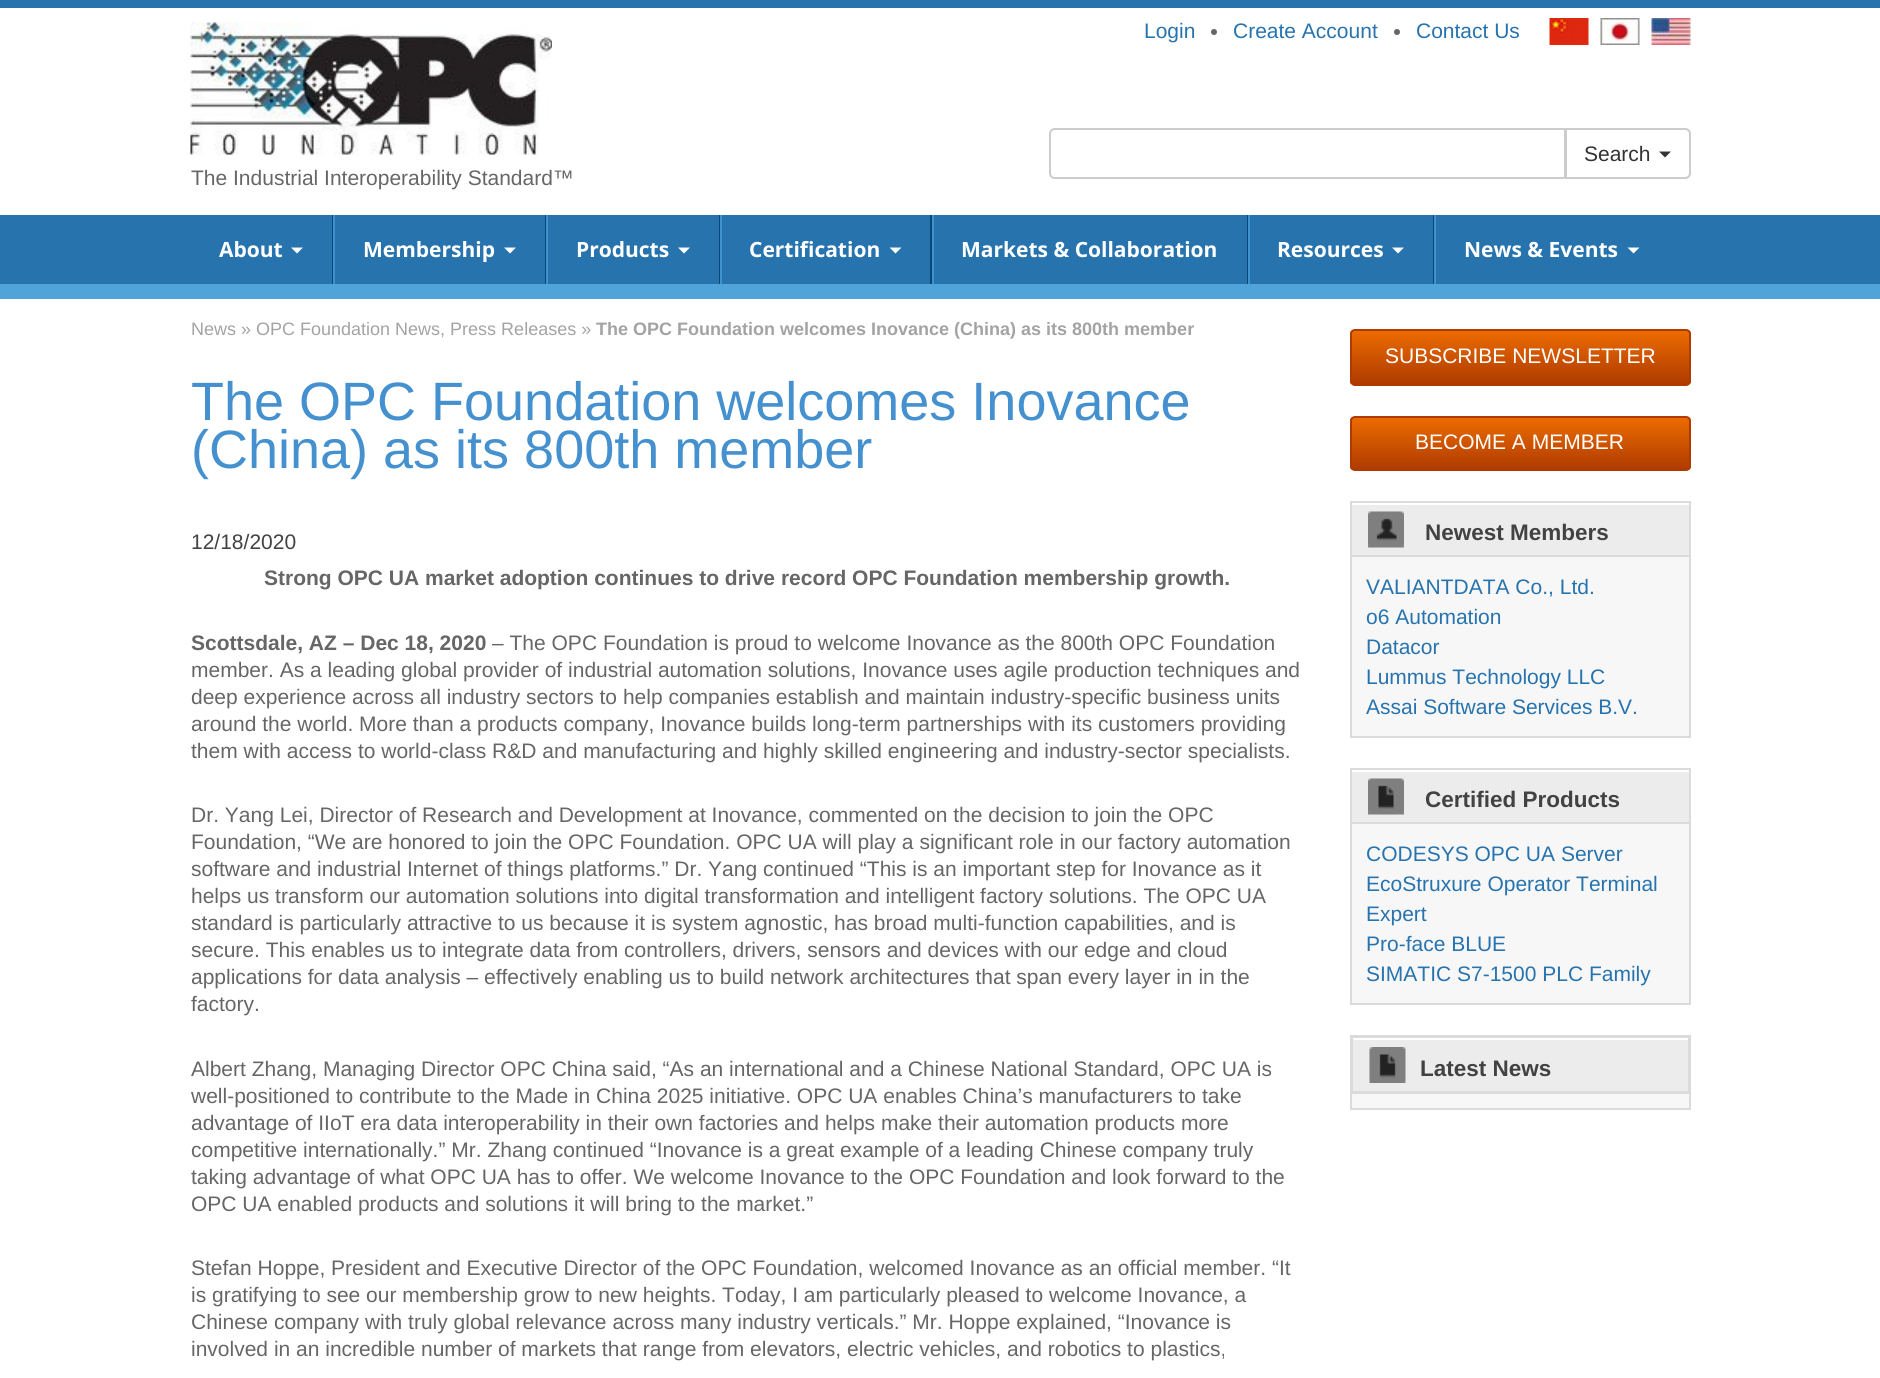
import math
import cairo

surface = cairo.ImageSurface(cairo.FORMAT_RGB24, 1880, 1378)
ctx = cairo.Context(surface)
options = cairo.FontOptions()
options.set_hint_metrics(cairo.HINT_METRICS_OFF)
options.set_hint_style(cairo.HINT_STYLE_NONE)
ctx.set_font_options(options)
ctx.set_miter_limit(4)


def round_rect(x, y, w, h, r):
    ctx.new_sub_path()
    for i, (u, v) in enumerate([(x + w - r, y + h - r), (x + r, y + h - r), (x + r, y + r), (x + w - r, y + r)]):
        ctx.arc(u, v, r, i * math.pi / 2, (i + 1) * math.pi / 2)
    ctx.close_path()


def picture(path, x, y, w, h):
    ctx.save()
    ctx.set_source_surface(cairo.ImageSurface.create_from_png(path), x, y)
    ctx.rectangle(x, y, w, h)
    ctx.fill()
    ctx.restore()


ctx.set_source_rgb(1, 1, 1)
ctx.paint()
ctx.set_source_rgb(0.153, 0.451, 0.682)
ctx.rectangle(0, 0, 1880, 8)
ctx.fill()
ctx.select_font_face("Liberation Sans")
ctx.set_font_size(21)
ctx.move_to(1144, 38)
ctx.show_text("Login")
ctx.set_source_rgb(0.4, 0.4, 0.4)
ctx.new_path()
ctx.arc(1214, 32, 3, 0, 2 * math.pi)
ctx.fill()
ctx.set_source_rgb(0.153, 0.451, 0.682)
ctx.move_to(1233, 38)
ctx.show_text("Create Account")
ctx.set_source_rgb(0.4, 0.4, 0.4)
ctx.new_path()
ctx.arc(1397, 32, 3, 0, 2 * math.pi)
ctx.fill()
ctx.set_source_rgb(0.153, 0.451, 0.682)
ctx.move_to(1416, 38)
ctx.show_text("Contact Us")
picture("img1.png", 1549, 18, 40, 27)
picture("img2.png", 1600, 18, 40, 27)
picture("img3.png", 1651, 18, 40, 27)
ctx.new_path()
ctx.move_to(1566, 129)
ctx.line_to(1685, 129)
ctx.curve_to(1688, 129, 1690, 131, 1690, 134)
ctx.line_to(1690, 173)
ctx.curve_to(1690, 176, 1688, 178, 1685, 178)
ctx.line_to(1566, 178)
ctx.close_path()
ctx.set_source_rgb(0.8, 0.8, 0.8)
ctx.stroke()
ctx.set_source_rgb(1, 1, 1)
ctx.new_path()
ctx.move_to(1055, 129)
ctx.line_to(1565, 129)
ctx.line_to(1565, 178)
ctx.line_to(1055, 178)
ctx.curve_to(1052, 178, 1050, 176, 1050, 173)
ctx.line_to(1050, 134)
ctx.curve_to(1050, 131, 1052, 129, 1055, 129)
ctx.close_path()
ctx.fill_preserve()
ctx.set_source_rgb(0.8, 0.8, 0.8)
ctx.stroke()
ctx.set_source_rgb(0.2, 0.2, 0.2)
ctx.move_to(1584, 161)
ctx.show_text("Search")
ctx.new_path()
ctx.move_to(1659, 151.5)
ctx.line_to(1671, 151.5)
ctx.line_to(1665, 157.5)
ctx.close_path()
ctx.fill()
picture("img4.png", 190, 22, 362, 133)
ctx.set_source_rgb(0.4, 0.4, 0.4)
ctx.move_to(191, 185)
ctx.show_text("The Industrial Interoperability Standard™")
ctx.set_source_rgb(0.153, 0.451, 0.682)
ctx.rectangle(0, 215, 1880, 69)
ctx.fill()
ctx.set_source_rgb(0.318, 0.643, 0.855)
ctx.rectangle(0, 284, 1880, 15)
ctx.fill()
ctx.set_source_rgb(0.027, 0.286, 0.475)
ctx.rectangle(332, 215, 1, 69)
ctx.fill()
ctx.select_font_face("Open Sans", cairo.FONT_SLANT_NORMAL, cairo.FONT_WEIGHT_BOLD)
ctx.set_source_rgb(1, 1, 1)
ctx.move_to(219, 257)
ctx.show_text("About")
ctx.new_path()
ctx.move_to(291, 247.5)
ctx.line_to(303, 247.5)
ctx.line_to(297, 253.5)
ctx.close_path()
ctx.fill()
ctx.set_source_rgb(0.027, 0.286, 0.475)
ctx.rectangle(545, 215, 1, 69)
ctx.fill()
ctx.set_source_rgb(0.243, 0.573, 0.816)
ctx.rectangle(333, 215, 2, 69)
ctx.fill()
ctx.set_source_rgb(1, 1, 1)
ctx.move_to(363, 257)
ctx.show_text("Membership")
ctx.new_path()
ctx.move_to(504, 247.5)
ctx.line_to(516, 247.5)
ctx.line_to(510, 253.5)
ctx.close_path()
ctx.fill()
ctx.set_source_rgb(0.027, 0.286, 0.475)
ctx.rectangle(719, 215, 1, 69)
ctx.fill()
ctx.set_source_rgb(0.243, 0.573, 0.816)
ctx.rectangle(546, 215, 2, 69)
ctx.fill()
ctx.set_source_rgb(1, 1, 1)
ctx.move_to(576, 257)
ctx.show_text("Products")
ctx.new_path()
ctx.move_to(678, 247.5)
ctx.line_to(690, 247.5)
ctx.line_to(684, 253.5)
ctx.close_path()
ctx.fill()
ctx.set_source_rgb(0.027, 0.286, 0.475)
ctx.rectangle(930, 215, 2, 69)
ctx.fill()
ctx.set_source_rgb(0.243, 0.573, 0.816)
ctx.rectangle(720, 215, 2, 69)
ctx.fill()
ctx.set_source_rgb(1, 1, 1)
ctx.move_to(749, 257)
ctx.show_text("Certification")
ctx.new_path()
ctx.move_to(889.5, 247.5)
ctx.line_to(901.5, 247.5)
ctx.line_to(895.5, 253.5)
ctx.close_path()
ctx.fill()
ctx.set_source_rgb(0.027, 0.286, 0.475)
ctx.rectangle(1247, 215, 1, 69)
ctx.fill()
ctx.set_source_rgb(0.243, 0.573, 0.816)
ctx.rectangle(932, 215, 2, 69)
ctx.fill()
ctx.set_source_rgb(1, 1, 1)
ctx.move_to(961, 257)
ctx.show_text("Markets & Collaboration")
ctx.set_source_rgb(0.027, 0.286, 0.475)
ctx.rectangle(1433, 215, 1, 69)
ctx.fill()
ctx.set_source_rgb(0.243, 0.573, 0.816)
ctx.rectangle(1248, 215, 2, 69)
ctx.fill()
ctx.set_source_rgb(1, 1, 1)
ctx.move_to(1277, 257)
ctx.show_text("Resources")
ctx.new_path()
ctx.move_to(1392, 247.5)
ctx.line_to(1404, 247.5)
ctx.line_to(1398, 253.5)
ctx.close_path()
ctx.fill()
ctx.set_source_rgb(0.243, 0.573, 0.816)
ctx.rectangle(1434, 215, 2, 69)
ctx.fill()
ctx.set_source_rgb(1, 1, 1)
ctx.move_to(1464, 257)
ctx.show_text("News & Events")
ctx.new_path()
ctx.move_to(1627.5, 247.5)
ctx.line_to(1639.5, 247.5)
ctx.line_to(1633.5, 253.5)
ctx.close_path()
ctx.fill()
ctx.select_font_face("Liberation Sans")
ctx.set_font_size(18)
ctx.set_source_rgb(0.639, 0.639, 0.639)
ctx.move_to(191, 335)
ctx.show_text("News » OPC Foundation News, Press Releases »")
ctx.select_font_face("Liberation Sans", cairo.FONT_SLANT_NORMAL, cairo.FONT_WEIGHT_BOLD)
ctx.move_to(596, 335)
ctx.show_text("The OPC Foundation welcomes Inovance (China) as its 800th member")
ctx.select_font_face("Liberation Sans")
ctx.set_font_size(54)
ctx.set_source_rgb(0.271, 0.569, 0.812)
ctx.move_to(191, 420)
ctx.show_text("The OPC Foundation welcomes Inovance")
ctx.move_to(191, 468)
ctx.show_text("(China) as its 800th member")
ctx.set_font_size(21)
ctx.set_source_rgb(0.259, 0.259, 0.259)
ctx.move_to(191, 549)
ctx.show_text("12/18/2020")
ctx.select_font_face("Liberation Sans", cairo.FONT_SLANT_NORMAL, cairo.FONT_WEIGHT_BOLD)
ctx.set_source_rgb(0.4, 0.4, 0.4)
ctx.move_to(264, 585)
ctx.show_text("Strong OPC UA market adoption continues to drive record OPC Foundation membership growth.")
ctx.move_to(191, 650)
ctx.show_text("Scottsdale, AZ – Dec 18, 2020")
ctx.select_font_face("Liberation Sans")
ctx.move_to(492, 650)
ctx.show_text("– The OPC Foundation is proud to welcome Inovance as the 800th OPC Foundation")
ctx.move_to(191, 677)
ctx.show_text("member. As a leading global provider of industrial automation solutions, Inovance uses agile production techniques and")
ctx.move_to(191, 704)
ctx.show_text("deep experience across all industry sectors to help companies establish and maintain industry-specific business units")
ctx.move_to(191, 731)
ctx.show_text("around the world. More than a products company, Inovance builds long-term partnerships with its customers providing")
ctx.move_to(191, 758)
ctx.show_text("them with access to world-class R&D and manufacturing and highly skilled engineering and industry-sector specialists.")
ctx.move_to(191, 822)
ctx.show_text("Dr. Yang Lei, Director of Research and Development at Inovance, commented on the decision to join the OPC")
ctx.move_to(191, 849)
ctx.show_text("Foundation, “We are honored to join the OPC Foundation. OPC UA will play a significant role in our factory automation")
ctx.move_to(191, 876)
ctx.show_text("software and industrial Internet of things platforms.” Dr. Yang continued “This is an important step for Inovance as it")
ctx.move_to(191, 903)
ctx.show_text("helps us transform our automation solutions into digital transformation and intelligent factory solutions. The OPC UA")
ctx.move_to(191, 930)
ctx.show_text("standard is particularly attractive to us because it is system agnostic, has broad multi-function capabilities, and is")
ctx.move_to(191, 957)
ctx.show_text("secure. This enables us to integrate data from controllers, drivers, sensors and devices with our edge and cloud")
ctx.move_to(191, 984)
ctx.show_text("applications for data analysis – effectively enabling us to build network architectures that span every layer in in the")
ctx.move_to(191, 1011)
ctx.show_text("factory.")
ctx.move_to(191, 1076)
ctx.show_text("Albert Zhang, Managing Director OPC China said, “As an international and a Chinese National Standard, OPC UA is")
ctx.move_to(191, 1103)
ctx.show_text("well-positioned to contribute to the Made in China 2025 initiative. OPC UA enables China’s manufacturers to take")
ctx.move_to(191, 1130)
ctx.show_text("advantage of IIoT era data interoperability in their own factories and helps make their automation products more")
ctx.move_to(191, 1157)
ctx.show_text("competitive internationally.” Mr. Zhang continued “Inovance is a great example of a leading Chinese company truly")
ctx.move_to(191, 1184)
ctx.show_text("taking advantage of what OPC UA has to offer. We welcome Inovance to the OPC Foundation and look forward to the")
ctx.move_to(191, 1211)
ctx.show_text("OPC UA enabled products and solutions it will bring to the market.”")
ctx.move_to(191, 1275)
ctx.show_text("Stefan Hoppe, President and Executive Director of the OPC Foundation, welcomed Inovance as an official member. “It")
ctx.move_to(191, 1302)
ctx.show_text("is gratifying to see our membership grow to new heights. Today, I am particularly pleased to welcome Inovance, a")
ctx.move_to(191, 1329)
ctx.show_text("Chinese company with truly global relevance across many industry verticals.” Mr. Hoppe explained, “Inovance is")
ctx.move_to(191, 1356)
ctx.show_text("involved in an incredible number of markets that range from elevators, electric vehicles, and robotics to plastics,")
ctx.save()
round_rect(1350, 329, 341, 57, 5)
ctx.clip()
gradient = cairo.LinearGradient(1520, 330, 1520, 384)
gradient.add_color_stop_rgba(0, 0.929, 0.424, 0, 1)
gradient.add_color_stop_rgba(1, 0.686, 0.231, 0, 1)
ctx.set_source(gradient)
ctx.rectangle(1350, 330, 341, 54)
ctx.fill()
ctx.restore()
round_rect(1351, 330, 339, 55, 4)
ctx.set_source_rgb(0.686, 0.231, 0)
ctx.stroke()
ctx.set_source_rgb(1, 1, 1)
ctx.move_to(1385, 363)
ctx.show_text("SUBSCRIBE NEWSLETTER")
ctx.save()
round_rect(1350, 416, 341, 55, 5)
ctx.clip()
gradient = cairo.LinearGradient(1520, 417, 1520, 470)
gradient.add_color_stop_rgba(0, 0.929, 0.424, 0, 1)
gradient.add_color_stop_rgba(1, 0.686, 0.231, 0, 1)
ctx.set_source(gradient)
ctx.rectangle(1350, 417, 341, 53)
ctx.fill()
ctx.restore()
round_rect(1351, 417, 339, 53, 4)
ctx.set_source_rgb(0.686, 0.231, 0)
ctx.stroke()
ctx.set_source_rgb(1, 1, 1)
ctx.move_to(1415, 449)
ctx.show_text("BECOME A MEMBER")
ctx.set_source_rgb(0.965, 0.965, 0.965)
ctx.rectangle(1352, 557, 337, 179)
ctx.fill()
ctx.rectangle(1351, 502, 339, 235)
ctx.set_source_rgb(0.859, 0.859, 0.859)
ctx.stroke()
ctx.set_source_rgb(0.922, 0.922, 0.922)
ctx.rectangle(1352, 505, 337, 50)
ctx.fill()
ctx.set_source_rgb(0.859, 0.859, 0.859)
ctx.rectangle(1352, 555, 337, 2)
ctx.fill()
picture("img5.png", 1368, 511, 36, 37)
ctx.select_font_face("Liberation Sans", cairo.FONT_SLANT_NORMAL, cairo.FONT_WEIGHT_BOLD)
ctx.set_font_size(22.5)
ctx.set_source_rgb(0.259, 0.259, 0.259)
ctx.move_to(1425, 540)
ctx.show_text("Newest Members")
ctx.select_font_face("Liberation Sans")
ctx.set_font_size(21)
ctx.set_source_rgb(0.153, 0.451, 0.682)
ctx.move_to(1366, 594)
ctx.show_text("VALIANTDATA Co., Ltd.")
ctx.move_to(1366, 624)
ctx.show_text("o6 Automation")
ctx.move_to(1366, 654)
ctx.show_text("Datacor")
ctx.move_to(1366, 684)
ctx.show_text("Lummus Technology LLC")
ctx.move_to(1366, 714)
ctx.show_text("Assai Software Services B.V.")
ctx.set_source_rgb(0.965, 0.965, 0.965)
ctx.rectangle(1352, 824, 337, 179)
ctx.fill()
ctx.rectangle(1351, 769, 339, 235)
ctx.set_source_rgb(0.859, 0.859, 0.859)
ctx.stroke()
ctx.set_source_rgb(0.922, 0.922, 0.922)
ctx.rectangle(1352, 772, 337, 50)
ctx.fill()
ctx.set_source_rgb(0.859, 0.859, 0.859)
ctx.rectangle(1352, 822, 337, 2)
ctx.fill()
picture("img6.png", 1368, 778, 36, 37)
ctx.select_font_face("Liberation Sans", cairo.FONT_SLANT_NORMAL, cairo.FONT_WEIGHT_BOLD)
ctx.set_font_size(22.5)
ctx.set_source_rgb(0.259, 0.259, 0.259)
ctx.move_to(1425, 807)
ctx.show_text("Certified Products")
ctx.select_font_face("Liberation Sans")
ctx.set_font_size(21)
ctx.set_source_rgb(0.153, 0.451, 0.682)
ctx.move_to(1366, 861)
ctx.show_text("CODESYS OPC UA Server")
ctx.move_to(1366, 891)
ctx.show_text("EcoStruxure Operator Terminal")
ctx.move_to(1366, 921)
ctx.show_text("Expert")
ctx.move_to(1366, 951)
ctx.show_text("Pro-face BLUE")
ctx.move_to(1366, 981)
ctx.show_text("SIMATIC S7-1500 PLC Family")
ctx.set_source_rgb(0.965, 0.965, 0.965)
ctx.rectangle(1352, 1094, 337, 14)
ctx.fill()
ctx.rectangle(1351, 1036, 339, 73)
ctx.set_source_rgb(0.859, 0.859, 0.859)
ctx.stroke()
ctx.rectangle(1353, 1038, 335, 55)
ctx.stroke()
ctx.set_source_rgb(0.922, 0.922, 0.922)
ctx.rectangle(1353, 1040, 335, 51)
ctx.fill()
ctx.set_source_rgb(1, 1, 1)
ctx.rectangle(1353, 1038, 335, 2)
ctx.fill()
ctx.set_source_rgb(0.859, 0.859, 0.859)
ctx.rectangle(1353, 1091, 335, 1)
ctx.fill()
picture("img7.png", 1369, 1047, 37, 36)
ctx.select_font_face("Liberation Sans", cairo.FONT_SLANT_NORMAL, cairo.FONT_WEIGHT_BOLD)
ctx.set_font_size(22.5)
ctx.set_source_rgb(0.259, 0.259, 0.259)
ctx.move_to(1420, 1076)
ctx.show_text("Latest News")
surface.write_to_png("page.png")
